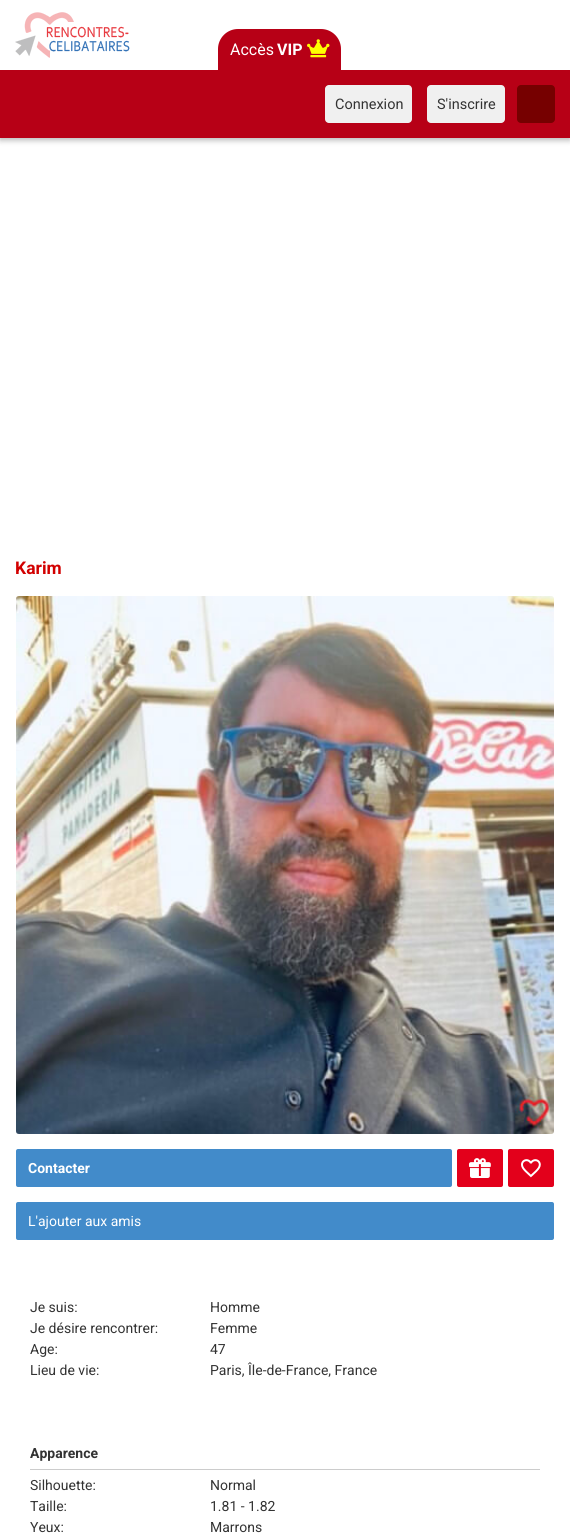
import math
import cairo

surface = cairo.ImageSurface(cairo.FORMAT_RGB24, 570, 1539)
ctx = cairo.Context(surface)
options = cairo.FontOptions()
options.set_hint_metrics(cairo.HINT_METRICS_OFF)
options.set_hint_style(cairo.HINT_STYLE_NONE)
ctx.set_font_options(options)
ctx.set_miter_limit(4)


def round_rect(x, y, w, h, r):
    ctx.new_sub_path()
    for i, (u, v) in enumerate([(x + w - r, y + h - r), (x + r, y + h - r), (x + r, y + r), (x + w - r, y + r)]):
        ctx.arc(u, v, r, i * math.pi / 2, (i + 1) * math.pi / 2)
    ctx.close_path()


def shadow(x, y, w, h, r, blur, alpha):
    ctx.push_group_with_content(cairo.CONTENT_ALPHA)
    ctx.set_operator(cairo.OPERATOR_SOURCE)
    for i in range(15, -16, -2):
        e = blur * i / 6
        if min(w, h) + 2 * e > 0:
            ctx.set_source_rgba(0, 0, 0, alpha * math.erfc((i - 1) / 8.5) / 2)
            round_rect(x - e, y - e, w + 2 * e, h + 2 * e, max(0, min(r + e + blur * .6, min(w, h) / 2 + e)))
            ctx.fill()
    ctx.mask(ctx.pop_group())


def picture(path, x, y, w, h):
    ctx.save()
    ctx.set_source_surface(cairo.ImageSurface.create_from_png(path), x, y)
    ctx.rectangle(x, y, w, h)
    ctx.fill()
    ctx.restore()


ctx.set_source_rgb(1, 1, 1)
ctx.paint()
ctx.set_source_rgb(0, 0, 0)
shadow(0, 2, 570, 138, 0, 3, 0.3)
ctx.set_source_rgb(1, 1, 1)
ctx.rectangle(0, 0, 570, 70)
ctx.fill()
picture("img1.png", 15, 12, 115, 46)
ctx.set_source_rgb(0.718, 0, 0.086)
ctx.new_path()
ctx.move_to(238, 29)
ctx.line_to(321, 29)
ctx.curve_to(332, 29, 341, 38, 341, 49)
ctx.line_to(341, 70)
ctx.line_to(218, 70)
ctx.line_to(218, 49)
ctx.curve_to(218, 38, 227, 29, 238, 29)
ctx.close_path()
ctx.fill()
ctx.select_font_face("Roboto")
ctx.set_font_size(16)
ctx.set_source_rgb(1, 1, 1)
ctx.move_to(230, 55)
ctx.show_text("Accès")
ctx.select_font_face("Roboto", cairo.FONT_SLANT_NORMAL, cairo.FONT_WEIGHT_BOLD)
ctx.move_to(277, 55)
ctx.show_text("VIP")
picture("img2.png", 307, 39, 23, 19)
ctx.set_source_rgb(0.718, 0, 0.086)
ctx.rectangle(0, 70, 570, 68)
ctx.fill()
ctx.set_source_rgb(0.941, 0.941, 0.941)
round_rect(325, 85, 87, 38, 4)
ctx.fill()
ctx.select_font_face("Roboto")
ctx.set_font_size(14.5)
ctx.set_source_rgb(0.2, 0.2, 0.2)
ctx.move_to(335, 109)
ctx.show_text("Connexion")
ctx.set_source_rgb(0.941, 0.941, 0.941)
round_rect(427, 85, 78, 38, 4)
ctx.fill()
ctx.set_source_rgb(0.2, 0.2, 0.2)
ctx.move_to(437, 109)
ctx.show_text("S'inscrire")
ctx.set_source_rgb(0.463, 0, 0)
round_rect(517, 85, 38, 38, 4)
ctx.fill()
ctx.select_font_face("Roboto", cairo.FONT_SLANT_NORMAL, cairo.FONT_WEIGHT_BOLD)
ctx.set_font_size(17.5)
ctx.set_source_rgb(0.824, 0, 0)
ctx.move_to(15, 574)
ctx.show_text("Karim")
picture("img3.png", 16, 596, 538, 538)
ctx.set_source_rgb(0.259, 0.545, 0.792)
round_rect(16, 1149, 436, 38, 2)
ctx.fill()
ctx.set_font_size(14)
ctx.set_source_rgb(1, 1, 1)
ctx.move_to(28, 1173)
ctx.show_text("Contacter")
ctx.set_source_rgb(0.89, 0, 0.106)
round_rect(457, 1149, 46, 38, 2)
ctx.fill()
picture("img4.png", 468, 1158, 23, 20)
round_rect(508, 1149, 46, 38, 2)
ctx.fill()
picture("img5.png", 521, 1159, 20, 19)
ctx.set_source_rgb(0.259, 0.545, 0.792)
round_rect(16, 1202, 538, 38, 2)
ctx.fill()
ctx.select_font_face("Roboto")
ctx.set_source_rgb(1, 1, 1)
ctx.move_to(28, 1226)
ctx.show_text("L'ajouter aux amis")
ctx.set_source_rgb(0.2, 0.2, 0.2)
ctx.move_to(30, 1312)
ctx.show_text("Je suis:")
ctx.move_to(210, 1312)
ctx.show_text("Homme")
ctx.move_to(30, 1333)
ctx.show_text("Je désire rencontrer:")
ctx.move_to(210, 1333)
ctx.show_text("Femme")
ctx.move_to(30, 1354)
ctx.show_text("Age:")
ctx.move_to(210, 1354)
ctx.show_text("47")
ctx.move_to(30, 1375)
ctx.show_text("Lieu de vie:")
ctx.move_to(210, 1375)
ctx.show_text("Paris, Île-de-France, France")
ctx.set_source_rgb(0.8, 0.8, 0.8)
ctx.rectangle(30, 1469, 510, 1)
ctx.fill()
ctx.select_font_face("Roboto", cairo.FONT_SLANT_NORMAL, cairo.FONT_WEIGHT_BOLD)
ctx.set_source_rgb(0.2, 0.2, 0.2)
ctx.move_to(30, 1458)
ctx.show_text("Apparence")
ctx.select_font_face("Roboto")
ctx.move_to(30, 1490)
ctx.show_text("Silhouette:")
ctx.move_to(210, 1490)
ctx.show_text("Normal")
ctx.move_to(30, 1511)
ctx.show_text("Taille:")
ctx.move_to(210, 1511)
ctx.show_text("1.81 - 1.82")
ctx.move_to(30, 1532)
ctx.show_text("Yeux:")
ctx.move_to(210, 1532)
ctx.show_text("Marrons")
surface.write_to_png("page.png")
